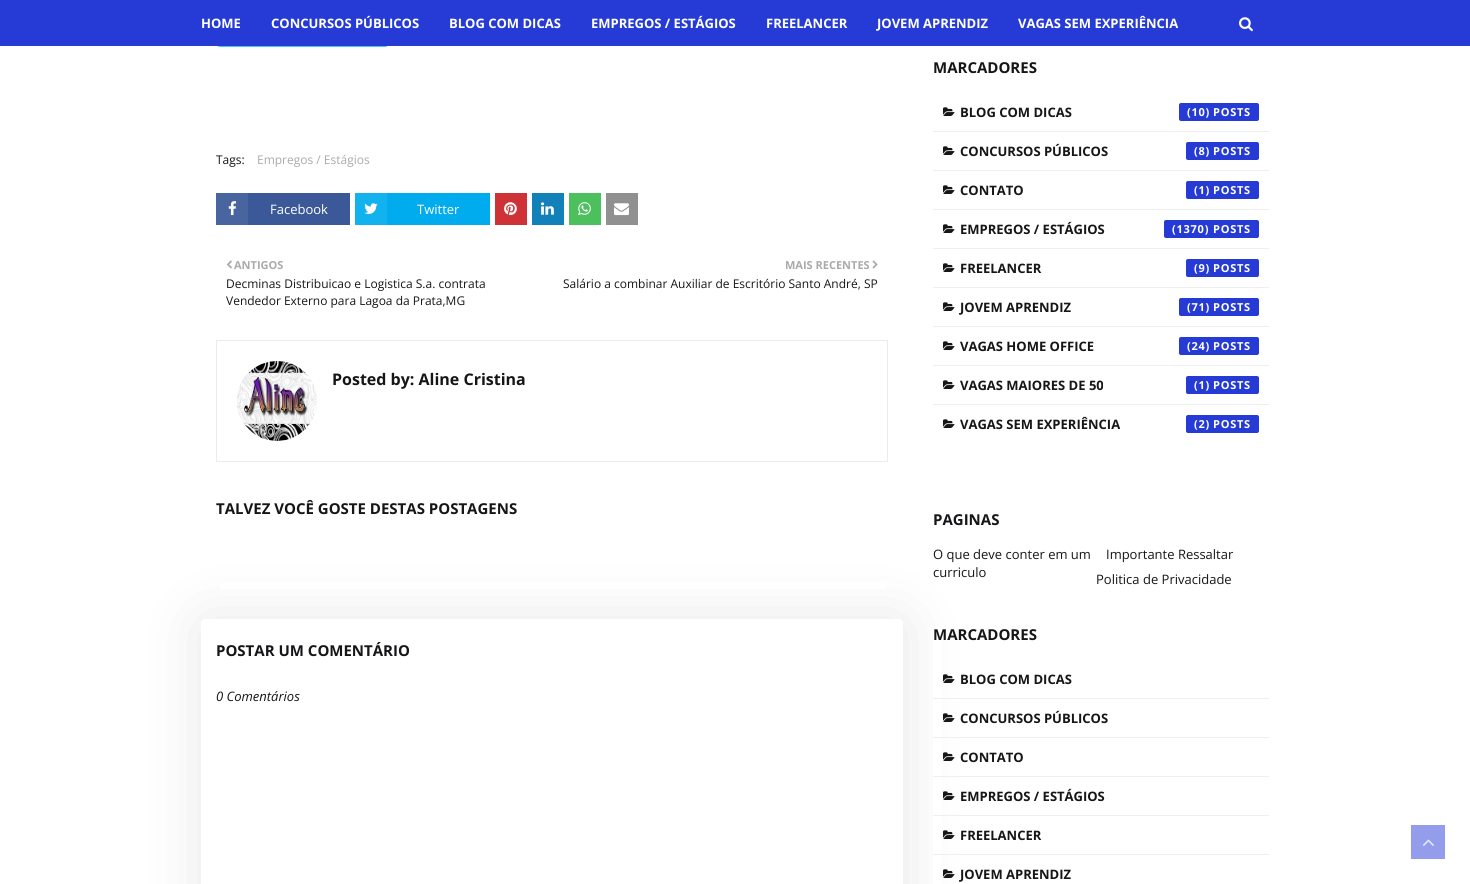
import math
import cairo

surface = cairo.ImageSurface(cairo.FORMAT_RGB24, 1470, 884)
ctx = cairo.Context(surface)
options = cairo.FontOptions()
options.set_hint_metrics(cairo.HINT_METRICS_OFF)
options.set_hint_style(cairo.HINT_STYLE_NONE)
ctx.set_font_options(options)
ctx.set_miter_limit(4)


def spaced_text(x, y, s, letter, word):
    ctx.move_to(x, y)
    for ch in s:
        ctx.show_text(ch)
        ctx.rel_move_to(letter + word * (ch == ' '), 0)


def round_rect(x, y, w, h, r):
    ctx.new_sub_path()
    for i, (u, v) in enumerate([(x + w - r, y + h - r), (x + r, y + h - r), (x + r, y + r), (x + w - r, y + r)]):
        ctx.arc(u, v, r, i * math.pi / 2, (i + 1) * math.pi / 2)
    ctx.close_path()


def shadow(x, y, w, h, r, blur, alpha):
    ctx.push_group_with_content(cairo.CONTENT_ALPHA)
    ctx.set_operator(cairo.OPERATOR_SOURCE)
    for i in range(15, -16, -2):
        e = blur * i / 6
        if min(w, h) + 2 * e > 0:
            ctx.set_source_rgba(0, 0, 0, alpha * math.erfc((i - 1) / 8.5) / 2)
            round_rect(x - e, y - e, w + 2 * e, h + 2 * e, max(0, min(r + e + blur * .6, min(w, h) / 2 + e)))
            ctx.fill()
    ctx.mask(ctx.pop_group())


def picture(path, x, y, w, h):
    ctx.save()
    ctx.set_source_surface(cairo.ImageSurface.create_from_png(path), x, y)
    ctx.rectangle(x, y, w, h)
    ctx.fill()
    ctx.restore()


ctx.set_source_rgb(1, 1, 1)
ctx.paint()
ctx.set_source_rgb(0.302, 0.757, 0.937)
round_rect(216, 9, 173, 38, 4)
ctx.fill()
ctx.set_source_rgb(0.149, 0.231, 0.839)
ctx.rectangle(0, 0, 1470, 46)
ctx.fill()
ctx.select_font_face("Open Sans", cairo.FONT_SLANT_NORMAL, cairo.FONT_WEIGHT_BOLD)
ctx.set_font_size(13)
ctx.set_source_rgb(1, 1, 1)
ctx.move_to(201, 28)
ctx.show_text("HOME")
ctx.move_to(271, 28)
ctx.show_text("CONCURSOS PÚBLICOS")
ctx.move_to(449, 28)
ctx.show_text("BLOG COM DICAS")
ctx.move_to(591, 28)
ctx.show_text("EMPREGOS / ESTÁGIOS")
ctx.move_to(766, 28)
ctx.show_text("FREELANCER")
ctx.move_to(877, 28)
ctx.show_text("JOVEM APRENDIZ")
ctx.move_to(1018, 28)
ctx.show_text("VAGAS SEM EXPERIÊNCIA")
picture("img1.png", 1239, 17, 14, 15)
ctx.save()
ctx.set_fill_rule(cairo.FILL_RULE_EVEN_ODD)
ctx.new_path()
ctx.move_to(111, 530)
ctx.line_to(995, 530)
ctx.line_to(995, 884)
ctx.line_to(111, 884)
ctx.close_path()
ctx.move_to(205, 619)
ctx.line_to(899, 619)
ctx.curve_to(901, 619, 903, 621, 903, 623)
ctx.line_to(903, 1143)
ctx.curve_to(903, 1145, 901, 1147, 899, 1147)
ctx.line_to(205, 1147)
ctx.curve_to(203, 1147, 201, 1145, 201, 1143)
ctx.line_to(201, 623)
ctx.curve_to(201, 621, 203, 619, 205, 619)
ctx.close_path()
ctx.clip()
ctx.set_source_rgb(0, 0, 0)
shadow(202, 621, 702, 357, 4, 30, 0.1)
ctx.restore()
ctx.rectangle(220, 583, 666, 6)
ctx.fill()
ctx.select_font_face("Open Sans")
ctx.set_font_size(12)
ctx.set_source_rgb(0.086, 0.086, 0.098)
ctx.move_to(216, 164)
ctx.show_text("Tags:")
ctx.set_source_rgb(0.667, 0.667, 0.667)
ctx.move_to(257, 164)
ctx.show_text("Empregos / Estágios")
ctx.set_source_rgb(0.231, 0.349, 0.6)
ctx.rectangle(248, 193, 102, 32)
ctx.fill()
ctx.set_source_rgb(0.286, 0.396, 0.627)
ctx.rectangle(216, 193, 32, 32)
ctx.fill()
picture("img2.png", 228, 201, 9, 15)
ctx.set_font_size(13)
ctx.set_source_rgb(1, 1, 1)
ctx.move_to(270, 214)
ctx.show_text("Facebook")
ctx.set_source_rgb(0, 0.675, 0.933)
ctx.rectangle(387, 193, 103, 32)
ctx.fill()
ctx.set_source_rgb(0.071, 0.698, 0.937)
ctx.rectangle(355, 193, 32, 32)
ctx.fill()
picture("img3.png", 364, 203, 14, 11)
ctx.set_source_rgb(1, 1, 1)
ctx.move_to(417, 214)
ctx.show_text("Twitter")
ctx.set_source_rgb(0.808, 0.192, 0.212)
ctx.rectangle(495, 193, 32, 32)
ctx.fill()
picture("img4.png", 504, 202, 13, 14)
ctx.set_source_rgb(0.071, 0.506, 0.729)
ctx.rectangle(532, 193, 32, 32)
ctx.fill()
picture("img5.png", 541, 202, 13, 13)
ctx.set_source_rgb(0.298, 0.753, 0.361)
ctx.rectangle(569, 193, 32, 32)
ctx.fill()
picture("img6.png", 578, 202, 13, 13)
ctx.set_source_rgb(0.565, 0.565, 0.565)
ctx.rectangle(606, 193, 32, 32)
ctx.fill()
picture("img7.png", 614, 203, 15, 13)
picture("img8.png", 226, 260, 6, 9)
ctx.select_font_face("Open Sans", cairo.FONT_SLANT_NORMAL, cairo.FONT_WEIGHT_BOLD)
ctx.set_font_size(11)
ctx.set_source_rgb(0.667, 0.667, 0.667)
ctx.move_to(234, 269)
ctx.show_text("ANTIGOS")
ctx.select_font_face("Open Sans")
ctx.set_font_size(12)
ctx.set_source_rgb(0.086, 0.086, 0.098)
ctx.move_to(226, 288)
ctx.show_text("Decminas Distribuicao e Logistica S.a. contrata")
ctx.move_to(226, 305)
ctx.show_text("Vendedor Externo para Lagoa da Prata,MG")
ctx.select_font_face("Open Sans", cairo.FONT_SLANT_NORMAL, cairo.FONT_WEIGHT_BOLD)
ctx.set_font_size(11)
ctx.set_source_rgb(0.667, 0.667, 0.667)
ctx.move_to(785, 269)
ctx.show_text("MAIS RECENTES")
picture("img9.png", 872, 260, 6, 9)
ctx.select_font_face("Open Sans")
ctx.set_font_size(12)
ctx.set_source_rgb(0.086, 0.086, 0.098)
ctx.move_to(563, 288)
ctx.show_text("Salário a combinar Auxiliar de Escritório Santo André, SP")
ctx.rectangle(216.5, 340.5, 671, 121)
ctx.set_source_rgb(0.918, 0.918, 0.918)
ctx.set_line_width(1)
ctx.stroke()
gradient = cairo.LinearGradient(357, 481, 237, 361)
gradient.add_color_stop_rgba(0, 0.804, 0.804, 0.804, 1)
gradient.add_color_stop_rgba(0.5, 1, 1, 1, 1)
gradient.add_color_stop_rgba(1, 0.804, 0.804, 0.804, 1)
ctx.set_source(gradient)
ctx.arc(277, 401, 40, 0, 2 * math.pi)
ctx.fill()
picture("img10.png", 237, 361, 80, 80)
ctx.select_font_face("Open Sans", cairo.FONT_SLANT_NORMAL, cairo.FONT_WEIGHT_BOLD)
ctx.set_font_size(16)
ctx.set_source_rgb(0.086, 0.086, 0.098)
ctx.move_to(332, 385)
ctx.show_text("Posted by: Aline Cristina")
ctx.set_font_size(15)
ctx.move_to(216, 514)
ctx.show_text("TALVEZ VOCÊ GOSTE DESTAS POSTAGENS")
ctx.move_to(216, 656)
ctx.show_text("POSTAR UM COMENTÁRIO")
ctx.select_font_face("Open Sans", cairo.FONT_SLANT_ITALIC)
ctx.set_font_size(13)
ctx.move_to(216, 701)
ctx.show_text("0 Comentários")
ctx.select_font_face("Open Sans", cairo.FONT_SLANT_NORMAL, cairo.FONT_WEIGHT_BOLD)
ctx.set_font_size(15)
ctx.move_to(933, 73)
ctx.show_text("MARCADORES")
picture("img11.png", 943, 107, 12, 9)
ctx.set_font_size(13)
ctx.move_to(960, 117)
ctx.show_text("BLOG COM DICAS")
ctx.set_source_rgb(0.149, 0.231, 0.839)
round_rect(1179, 103, 80, 18, 2)
ctx.fill()
ctx.set_font_size(11)
ctx.set_source_rgb(1, 1, 1)
spaced_text(1187, 116, "(10)", 0.75, 0)
spaced_text(1213, 116, "POSTS", 0.75, 0)
ctx.set_source_rgb(0.937, 0.937, 0.937)
ctx.rectangle(933, 131, 336, 1)
ctx.fill()
picture("img11.png", 943, 146, 12, 9)
ctx.set_font_size(13)
ctx.set_source_rgb(0.086, 0.086, 0.098)
ctx.move_to(960, 156)
ctx.show_text("CONCURSOS PÚBLICOS")
ctx.set_source_rgb(0.149, 0.231, 0.839)
round_rect(1186, 142, 73, 18, 2)
ctx.fill()
ctx.set_font_size(11)
ctx.set_source_rgb(1, 1, 1)
spaced_text(1194, 155, "(8)", 0.75, 0)
spaced_text(1213, 155, "POSTS", 0.75, 0)
ctx.set_source_rgb(0.937, 0.937, 0.937)
ctx.rectangle(933, 170, 336, 1)
ctx.fill()
picture("img11.png", 943, 185, 12, 9)
ctx.set_font_size(13)
ctx.set_source_rgb(0.086, 0.086, 0.098)
ctx.move_to(960, 195)
ctx.show_text("CONTATO")
ctx.set_source_rgb(0.149, 0.231, 0.839)
round_rect(1186, 181, 73, 18, 2)
ctx.fill()
ctx.set_font_size(11)
ctx.set_source_rgb(1, 1, 1)
spaced_text(1194, 194, "(1)", 0.75, 0)
spaced_text(1213, 194, "POSTS", 0.75, 0)
ctx.set_source_rgb(0.937, 0.937, 0.937)
ctx.rectangle(933, 209, 336, 1)
ctx.fill()
picture("img11.png", 943, 224, 12, 9)
ctx.set_font_size(13)
ctx.set_source_rgb(0.086, 0.086, 0.098)
ctx.move_to(960, 234)
ctx.show_text("EMPREGOS / ESTÁGIOS")
ctx.set_source_rgb(0.149, 0.231, 0.839)
round_rect(1164, 220, 95, 18, 2)
ctx.fill()
ctx.set_font_size(11)
ctx.set_source_rgb(1, 1, 1)
spaced_text(1172, 233, "(1370)", 0.75, 0)
spaced_text(1213, 233, "POSTS", 0.75, 0)
ctx.set_source_rgb(0.937, 0.937, 0.937)
ctx.rectangle(933, 248, 336, 1)
ctx.fill()
picture("img11.png", 943, 263, 12, 9)
ctx.set_font_size(13)
ctx.set_source_rgb(0.086, 0.086, 0.098)
ctx.move_to(960, 273)
ctx.show_text("FREELANCER")
ctx.set_source_rgb(0.149, 0.231, 0.839)
round_rect(1186, 259, 73, 18, 2)
ctx.fill()
ctx.set_font_size(11)
ctx.set_source_rgb(1, 1, 1)
spaced_text(1194, 272, "(9)", 0.75, 0)
spaced_text(1213, 272, "POSTS", 0.75, 0)
ctx.set_source_rgb(0.937, 0.937, 0.937)
ctx.rectangle(933, 287, 336, 1)
ctx.fill()
picture("img11.png", 943, 302, 12, 9)
ctx.set_font_size(13)
ctx.set_source_rgb(0.086, 0.086, 0.098)
ctx.move_to(960, 312)
ctx.show_text("JOVEM APRENDIZ")
ctx.set_source_rgb(0.149, 0.231, 0.839)
round_rect(1179, 298, 80, 18, 2)
ctx.fill()
ctx.set_font_size(11)
ctx.set_source_rgb(1, 1, 1)
spaced_text(1187, 311, "(71)", 0.75, 0)
spaced_text(1213, 311, "POSTS", 0.75, 0)
ctx.set_source_rgb(0.937, 0.937, 0.937)
ctx.rectangle(933, 326, 336, 1)
ctx.fill()
picture("img11.png", 943, 341, 12, 9)
ctx.set_font_size(13)
ctx.set_source_rgb(0.086, 0.086, 0.098)
ctx.move_to(960, 351)
ctx.show_text("VAGAS HOME OFFICE")
ctx.set_source_rgb(0.149, 0.231, 0.839)
round_rect(1179, 337, 80, 18, 2)
ctx.fill()
ctx.set_font_size(11)
ctx.set_source_rgb(1, 1, 1)
spaced_text(1187, 350, "(24)", 0.75, 0)
spaced_text(1213, 350, "POSTS", 0.75, 0)
ctx.set_source_rgb(0.937, 0.937, 0.937)
ctx.rectangle(933, 365, 336, 1)
ctx.fill()
picture("img11.png", 943, 380, 12, 9)
ctx.set_font_size(13)
ctx.set_source_rgb(0.086, 0.086, 0.098)
ctx.move_to(960, 390)
ctx.show_text("VAGAS MAIORES DE 50")
ctx.set_source_rgb(0.149, 0.231, 0.839)
round_rect(1186, 376, 73, 18, 2)
ctx.fill()
ctx.set_font_size(11)
ctx.set_source_rgb(1, 1, 1)
spaced_text(1194, 389, "(1)", 0.75, 0)
spaced_text(1213, 389, "POSTS", 0.75, 0)
ctx.set_source_rgb(0.937, 0.937, 0.937)
ctx.rectangle(933, 404, 336, 1)
ctx.fill()
picture("img11.png", 943, 419, 12, 9)
ctx.set_font_size(13)
ctx.set_source_rgb(0.086, 0.086, 0.098)
ctx.move_to(960, 429)
ctx.show_text("VAGAS SEM EXPERIÊNCIA")
ctx.set_source_rgb(0.149, 0.231, 0.839)
round_rect(1186, 415, 73, 18, 2)
ctx.fill()
ctx.set_font_size(11)
ctx.set_source_rgb(1, 1, 1)
spaced_text(1194, 428, "(2)", 0.75, 0)
spaced_text(1213, 428, "POSTS", 0.75, 0)
ctx.set_font_size(15)
ctx.set_source_rgb(0.086, 0.086, 0.098)
ctx.move_to(933, 525)
ctx.show_text("PAGINAS")
ctx.select_font_face("Open Sans")
ctx.set_font_size(13)
ctx.move_to(933, 559)
ctx.show_text("O que deve conter em um")
ctx.move_to(933, 577)
ctx.show_text("curriculo")
ctx.move_to(1106, 559)
ctx.show_text("Importante Ressaltar")
ctx.move_to(1096, 584)
ctx.show_text("Politica de Privacidade")
ctx.set_source_rgb(1, 1, 1)
ctx.rectangle(933, 630, 9, 254)
ctx.fill()
ctx.select_font_face("Open Sans", cairo.FONT_SLANT_NORMAL, cairo.FONT_WEIGHT_BOLD)
ctx.set_font_size(15)
ctx.set_source_rgb(0.086, 0.086, 0.098)
ctx.move_to(933, 640)
ctx.show_text("MARCADORES")
picture("img11.png", 943, 674, 12, 9)
ctx.set_font_size(13)
ctx.move_to(960, 684)
ctx.show_text("BLOG COM DICAS")
ctx.set_source_rgb(0.937, 0.937, 0.937)
ctx.rectangle(933, 698, 336, 1)
ctx.fill()
picture("img11.png", 943, 713, 12, 9)
ctx.set_source_rgb(0.086, 0.086, 0.098)
ctx.move_to(960, 723)
ctx.show_text("CONCURSOS PÚBLICOS")
ctx.set_source_rgb(0.937, 0.937, 0.937)
ctx.rectangle(933, 737, 336, 1)
ctx.fill()
picture("img11.png", 943, 752, 12, 9)
ctx.set_source_rgb(0.086, 0.086, 0.098)
ctx.move_to(960, 762)
ctx.show_text("CONTATO")
ctx.set_source_rgb(0.937, 0.937, 0.937)
ctx.rectangle(933, 776, 336, 1)
ctx.fill()
picture("img11.png", 943, 791, 12, 9)
ctx.set_source_rgb(0.086, 0.086, 0.098)
ctx.move_to(960, 801)
ctx.show_text("EMPREGOS / ESTÁGIOS")
ctx.set_source_rgb(0.937, 0.937, 0.937)
ctx.rectangle(933, 815, 336, 1)
ctx.fill()
picture("img11.png", 943, 830, 12, 9)
ctx.set_source_rgb(0.086, 0.086, 0.098)
ctx.move_to(960, 840)
ctx.show_text("FREELANCER")
ctx.set_source_rgb(0.937, 0.937, 0.937)
ctx.rectangle(933, 854, 336, 1)
ctx.fill()
picture("img11.png", 943, 869, 12, 9)
ctx.set_source_rgb(0.086, 0.086, 0.098)
ctx.move_to(960, 879)
ctx.show_text("JOVEM APRENDIZ")
ctx.set_source_rgb(0.576, 0.616, 0.922)
ctx.rectangle(1411, 825, 34, 34)
ctx.fill()
picture("img12.png", 1423, 839, 11, 7)
surface.write_to_png("page.png")
